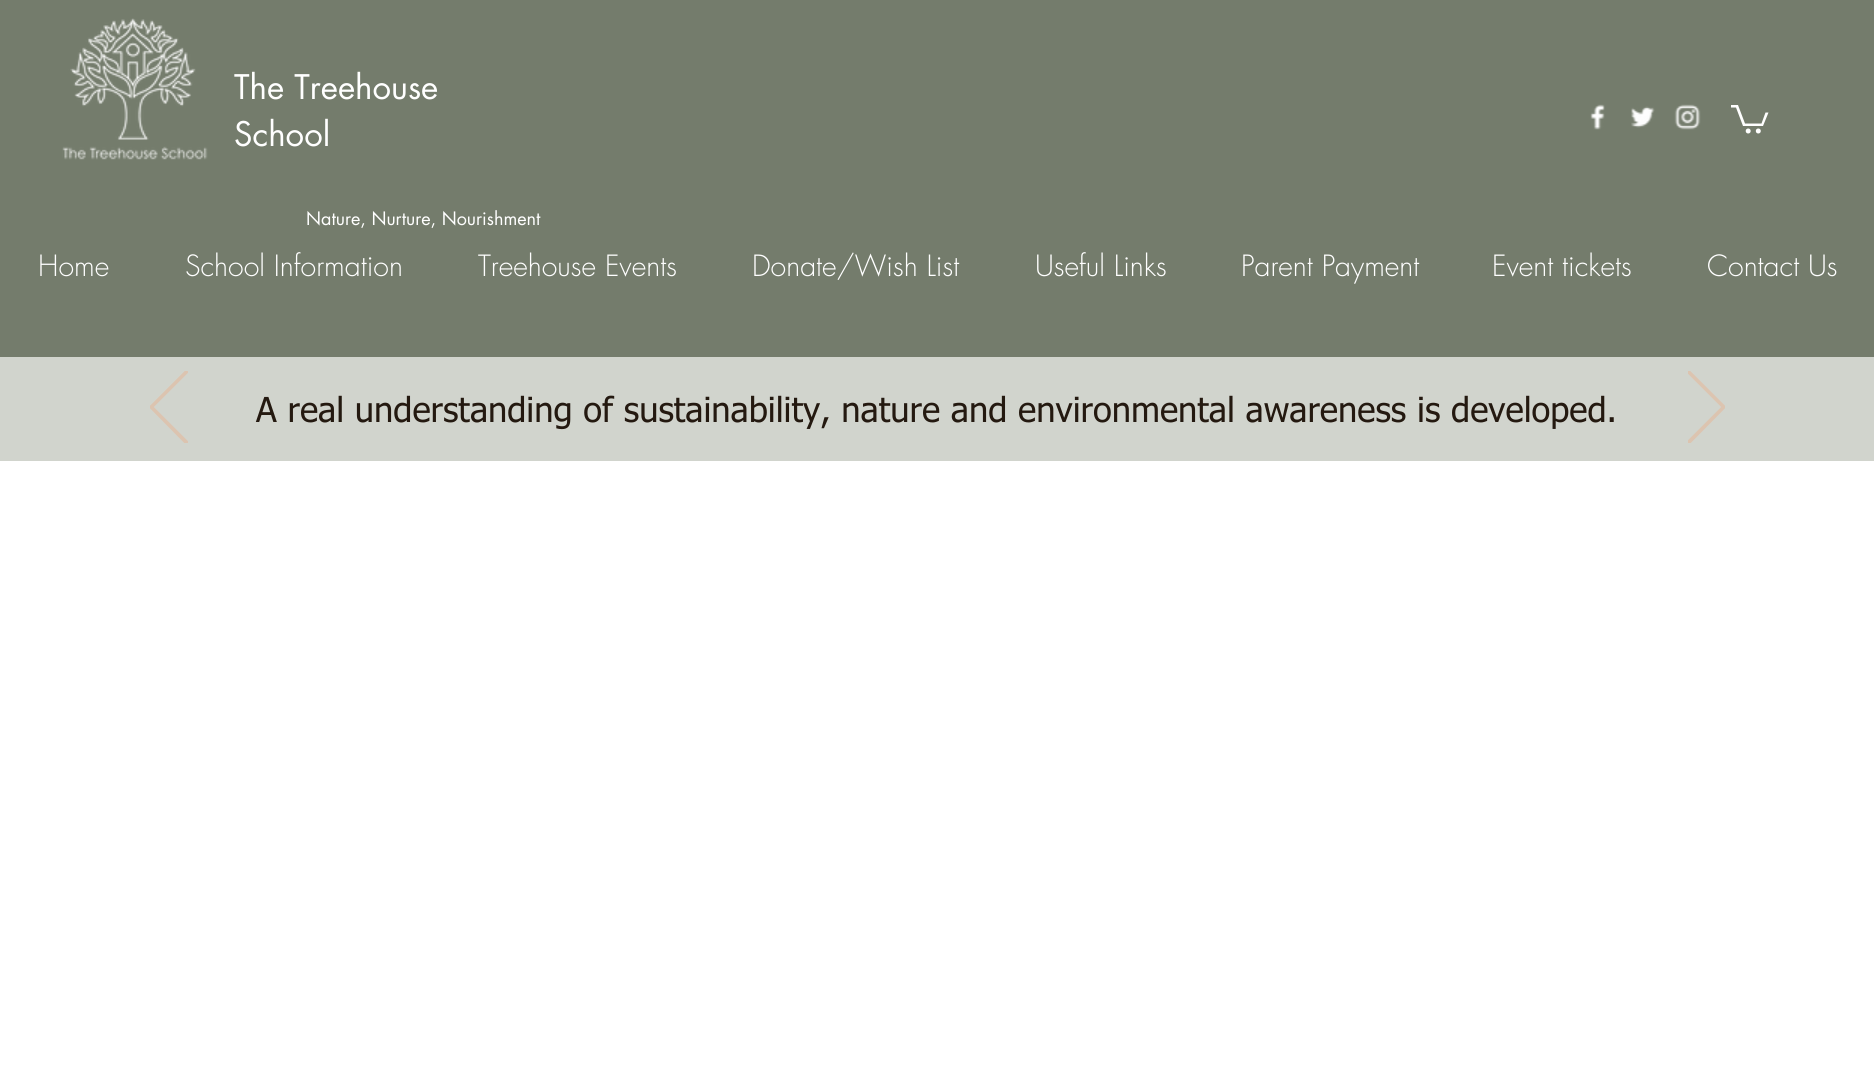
import math
import cairo

surface = cairo.ImageSurface(cairo.FORMAT_RGB24, 1874, 1083)
ctx = cairo.Context(surface)
options = cairo.FontOptions()
options.set_hint_metrics(cairo.HINT_METRICS_OFF)
options.set_hint_style(cairo.HINT_STYLE_NONE)
ctx.set_font_options(options)
ctx.set_miter_limit(4)


def picture(path, x, y, w, h):
    ctx.save()
    ctx.set_source_surface(cairo.ImageSurface.create_from_png(path), x, y)
    ctx.rectangle(x, y, w, h)
    ctx.fill()
    ctx.restore()


ctx.set_source_rgb(1, 1, 1)
ctx.paint()
ctx.set_source_rgb(0.455, 0.486, 0.424)
ctx.rectangle(0, 0, 1874, 357)
ctx.fill()
picture("img1.png", 62, 18, 146, 142)
ctx.select_font_face("futura")
ctx.set_font_size(33)
ctx.set_source_rgb(1, 1, 1)
ctx.move_to(234, 99)
ctx.show_text("The Treehouse")
ctx.move_to(234, 146)
ctx.show_text("School")
ctx.set_font_size(18)
ctx.move_to(306, 225)
ctx.show_text("Nature, Nurture, Nourishment")
picture("img2.png", 1590, 104, 15, 26)
picture("img3.png", 1631, 106, 24, 22)
picture("img4.png", 1674, 104, 27, 26)
ctx.new_path()
ctx.move_to(1768.5, 112.5)
ctx.line_to(1763, 126)
ctx.line_to(1743, 126)
ctx.line_to(1736, 107.5)
ctx.line_to(1731, 107.5)
ctx.line_to(1731, 105)
ctx.line_to(1738, 105)
ctx.line_to(1745, 123.5)
ctx.line_to(1761.5, 123.5)
ctx.line_to(1765.5, 112.5)
ctx.fill()
ctx.arc(1758.3, 131, 2.5, 0, 2 * math.pi)
ctx.fill()
ctx.arc(1748.2, 131, 2.5, 0, 2 * math.pi)
ctx.fill()
ctx.select_font_face("futura Light")
ctx.set_font_size(28.5)
ctx.move_to(38, 276)
ctx.show_text("Home")
ctx.move_to(185, 276)
ctx.show_text("School Information")
ctx.move_to(478, 276)
ctx.show_text("Treehouse Events")
ctx.move_to(752, 276)
ctx.show_text("Donate/Wish List")
ctx.move_to(1035, 276)
ctx.show_text("Useful Links")
ctx.move_to(1241, 276)
ctx.show_text("Parent Payment")
ctx.move_to(1492, 276)
ctx.show_text("Event tickets")
ctx.move_to(1707, 276)
ctx.show_text("Contact Us")
ctx.set_source_rgb(0.82, 0.831, 0.804)
ctx.rectangle(0, 357, 1874, 104)
ctx.fill()
ctx.set_source_rgb(0.863, 0.769, 0.69)
ctx.new_path()
ctx.move_to(186, 443)
ctx.line_to(150, 407)
ctx.line_to(186, 371)
ctx.line_to(187, 372)
ctx.line_to(152, 407)
ctx.line_to(187, 442)
ctx.close_path()
ctx.fill()
ctx.save()
ctx.rectangle(150, 371, 38, 72)
ctx.clip()
ctx.new_path()
ctx.move_to(186, 443.5)
ctx.line_to(150, 407)
ctx.line_to(186, 371)
ctx.line_to(187.5, 372)
ctx.line_to(152.5, 407)
ctx.line_to(187.5, 442)
ctx.close_path()
ctx.set_line_width(1.8)
ctx.stroke()
ctx.restore()
ctx.select_font_face("tahoma")
ctx.set_font_size(34.5)
ctx.set_source_rgb(0.141, 0.098, 0.063)
ctx.move_to(256, 422)
ctx.show_text("A real understanding of sustainability, nature and environmental awareness is developed.")
ctx.set_source_rgb(0.863, 0.769, 0.69)
ctx.new_path()
ctx.move_to(1689, 443)
ctx.line_to(1725, 407)
ctx.line_to(1689, 371)
ctx.line_to(1688, 372)
ctx.line_to(1723, 407)
ctx.line_to(1688, 442)
ctx.close_path()
ctx.fill()
ctx.save()
ctx.rectangle(1688, 371, 37, 72)
ctx.clip()
ctx.new_path()
ctx.move_to(1689, 443.5)
ctx.line_to(1725, 407)
ctx.line_to(1689, 371)
ctx.line_to(1687.5, 372)
ctx.line_to(1722.5, 407)
ctx.line_to(1687.5, 442)
ctx.close_path()
ctx.set_line_width(1.8)
ctx.stroke()
ctx.restore()
surface.write_to_png("page.png")
